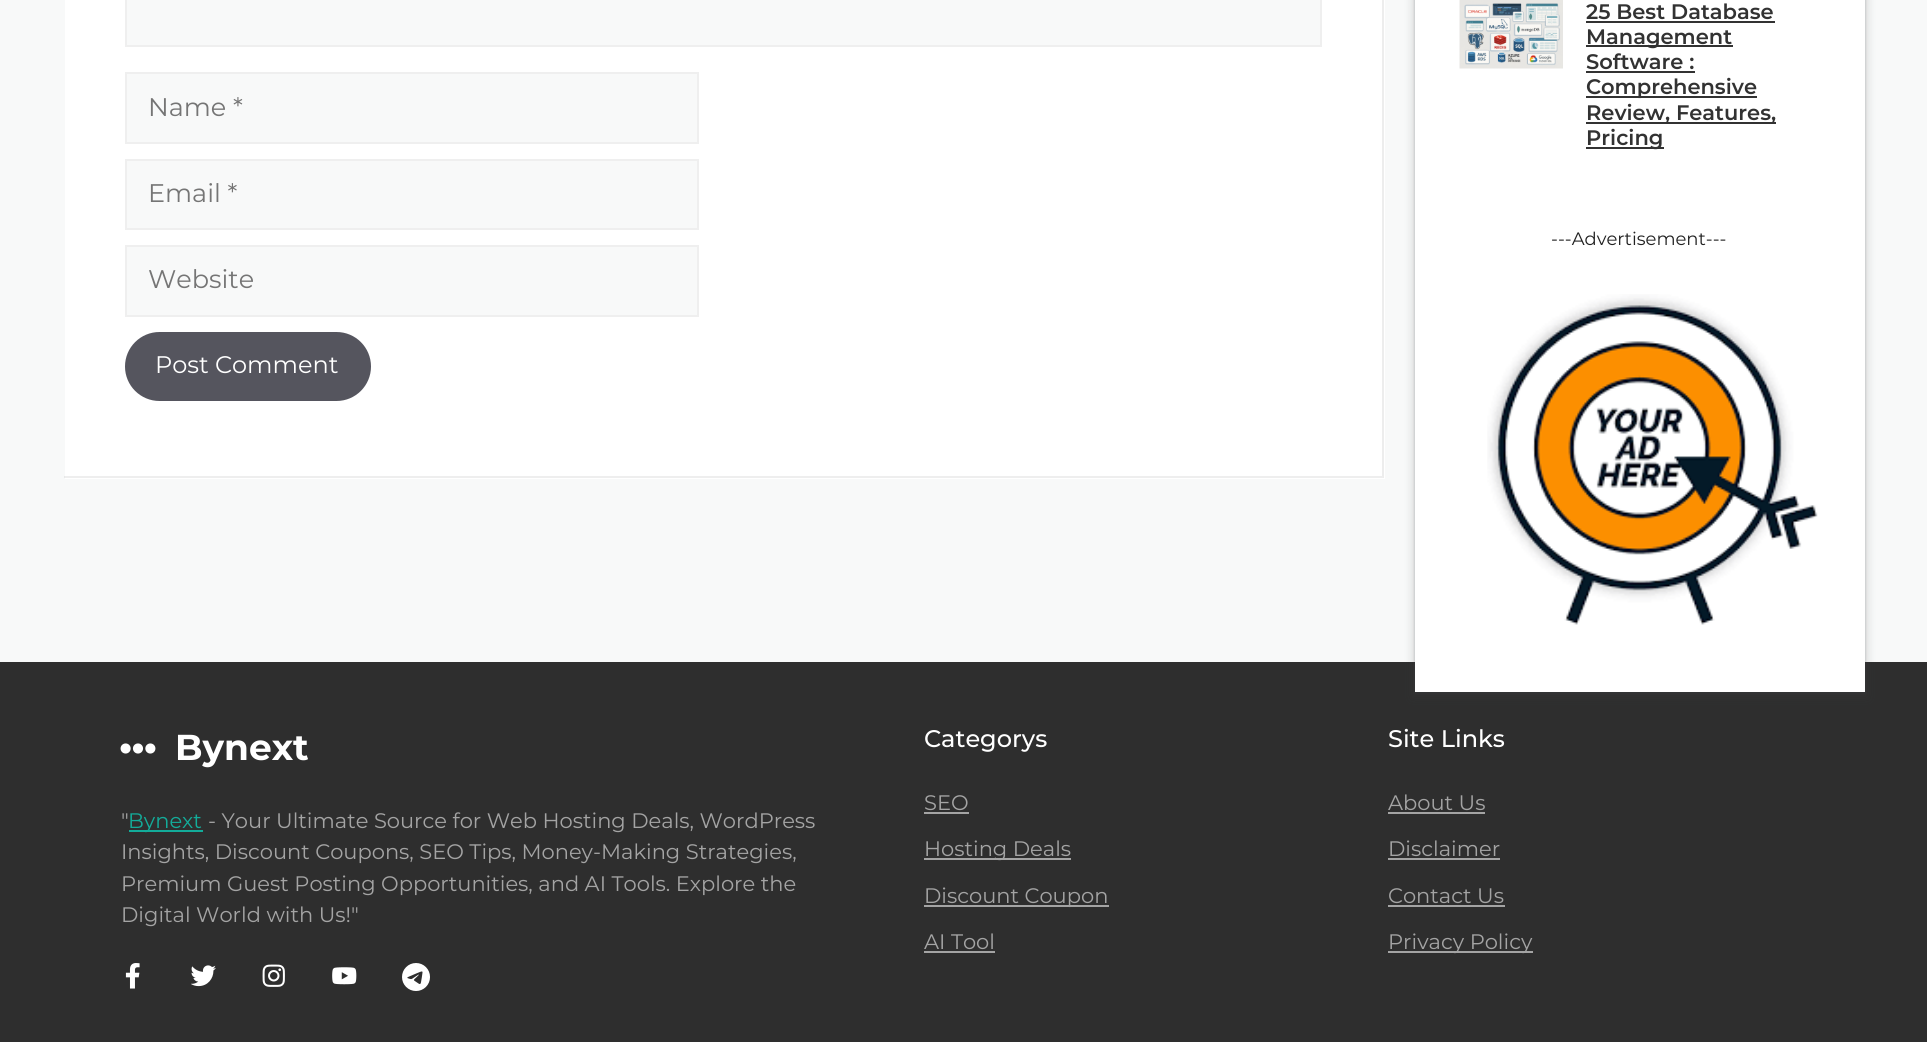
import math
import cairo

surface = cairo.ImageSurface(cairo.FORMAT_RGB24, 1927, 1042)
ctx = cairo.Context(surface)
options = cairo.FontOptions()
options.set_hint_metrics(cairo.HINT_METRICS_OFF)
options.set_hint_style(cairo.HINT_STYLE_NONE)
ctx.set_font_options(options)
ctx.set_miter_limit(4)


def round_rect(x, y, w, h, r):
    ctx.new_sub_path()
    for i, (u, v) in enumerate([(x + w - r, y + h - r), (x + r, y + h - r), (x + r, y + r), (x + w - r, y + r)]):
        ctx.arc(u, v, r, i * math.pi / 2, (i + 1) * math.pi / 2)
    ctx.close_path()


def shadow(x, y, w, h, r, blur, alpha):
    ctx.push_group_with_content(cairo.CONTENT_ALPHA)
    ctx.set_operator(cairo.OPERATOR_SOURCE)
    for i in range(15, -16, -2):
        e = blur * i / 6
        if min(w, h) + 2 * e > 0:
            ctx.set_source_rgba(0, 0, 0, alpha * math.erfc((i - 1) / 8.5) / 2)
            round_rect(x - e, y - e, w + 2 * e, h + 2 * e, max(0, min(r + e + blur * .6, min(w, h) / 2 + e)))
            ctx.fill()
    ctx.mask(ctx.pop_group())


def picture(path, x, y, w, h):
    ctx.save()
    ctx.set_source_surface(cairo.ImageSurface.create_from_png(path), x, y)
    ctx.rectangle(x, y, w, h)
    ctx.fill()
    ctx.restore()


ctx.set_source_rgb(0.969, 0.973, 0.976)
ctx.paint()
ctx.set_source_rgb(1, 1, 1)
ctx.rectangle(65, 0, 1320, 479)
ctx.fill()
ctx.set_source_rgb(0.929, 0.929, 0.929)
ctx.new_path()
ctx.move_to(1384, -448)
ctx.line_to(1384, 478)
ctx.line_to(1382, 476)
ctx.line_to(1382, -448)
ctx.close_path()
ctx.fill()
ctx.set_source_rgba(0, 0, 0, 0.07)
ctx.new_path()
ctx.move_to(1384, 478)
ctx.line_to(64, 478)
ctx.line_to(64, 476)
ctx.line_to(1382, 476)
ctx.close_path()
ctx.fill()
ctx.set_source_rgb(0.969, 0.973, 0.976)
ctx.rectangle(126, -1, 1195, 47)
ctx.fill_preserve()
ctx.set_source_rgb(0.937, 0.937, 0.937)
ctx.stroke()
ctx.set_source_rgb(0.969, 0.973, 0.976)
ctx.rectangle(126, 73, 572, 70)
ctx.fill_preserve()
ctx.set_source_rgb(0.937, 0.937, 0.937)
ctx.stroke()
ctx.select_font_face("Montserrat")
ctx.set_font_size(25.5)
ctx.set_source_rgb(0.459, 0.459, 0.459)
ctx.move_to(148, 116)
ctx.show_text("Name *")
ctx.set_source_rgb(0.969, 0.973, 0.976)
ctx.rectangle(126, 160, 572, 69)
ctx.fill_preserve()
ctx.set_source_rgb(0.937, 0.937, 0.937)
ctx.stroke()
ctx.set_source_rgb(0.459, 0.459, 0.459)
ctx.move_to(148, 202)
ctx.show_text("Email *")
ctx.set_source_rgb(0.969, 0.973, 0.976)
ctx.rectangle(126, 246, 572, 70)
ctx.fill_preserve()
ctx.set_source_rgb(0.937, 0.937, 0.937)
ctx.stroke()
ctx.set_source_rgb(0.459, 0.459, 0.459)
ctx.move_to(148, 288)
ctx.show_text("Website")
ctx.set_source_rgb(0.333, 0.333, 0.369)
round_rect(125, 332, 246, 69, 34.5)
ctx.fill()
ctx.set_font_size(24)
ctx.set_source_rgb(1, 1, 1)
ctx.move_to(155, 373)
ctx.show_text("Post Comment")
ctx.set_source_rgb(0.18, 0.18, 0.18)
ctx.rectangle(0, 662, 1927, 380)
ctx.fill()
ctx.set_source_rgb(0.235, 0.251, 0.263)
shadow(1412, -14, 456, 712, 0, 4.5, 0.15)
shadow(1415, -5, 450, 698, 0, 1.5, 0.3)
ctx.set_source_rgb(1, 1, 1)
ctx.rectangle(1415, 0, 450, 692)
ctx.fill()
picture("img1.png", 1459, 0, 104, 69)
ctx.select_font_face("Montserrat SemiBold")
ctx.set_font_size(21)
ctx.set_source_rgb(0.196, 0.196, 0.196)
ctx.move_to(1586, 19)
ctx.show_text("25 Best Database")
ctx.rectangle(1586, 21, 189, 2)
ctx.fill()
ctx.rectangle(1586, 45, 147, 2)
ctx.fill()
ctx.move_to(1586, 44)
ctx.show_text("Management")
ctx.move_to(1586, 69)
ctx.show_text("Software :")
ctx.rectangle(1586, 71, 109, 2)
ctx.fill()
ctx.rectangle(1586, 96, 171, 2)
ctx.fill()
ctx.move_to(1586, 94)
ctx.show_text("Comprehensive")
ctx.rectangle(1586, 122, 190, 2)
ctx.fill()
ctx.move_to(1586, 120)
ctx.show_text("Review, Features,")
ctx.rectangle(1586, 147, 78, 2)
ctx.fill()
ctx.move_to(1586, 145)
ctx.show_text("Pricing")
ctx.select_font_face("Montserrat")
ctx.set_font_size(18)
ctx.set_source_rgb(0.129, 0.129, 0.129)
ctx.move_to(1551, 245)
ctx.show_text("---Advertisement---")
picture("img2.png", 1487, 294, 331, 331)
picture("img3.png", 120, 743, 36, 11)
ctx.select_font_face("Montserrat", cairo.FONT_SLANT_NORMAL, cairo.FONT_WEIGHT_BOLD)
ctx.set_font_size(36)
ctx.set_source_rgb(1, 1, 1)
ctx.move_to(175, 760)
ctx.show_text("Bynext")
ctx.select_font_face("Montserrat")
ctx.set_font_size(21)
ctx.set_source_rgb(0.643, 0.643, 0.643)
ctx.move_to(121, 828)
ctx.show_text("\"")
ctx.set_source_rgb(0.075, 0.675, 0.604)
ctx.rectangle(129, 830, 74, 2)
ctx.fill()
ctx.move_to(128, 828)
ctx.show_text("Bynext")
ctx.set_source_rgb(0.643, 0.643, 0.643)
ctx.move_to(208, 828)
ctx.show_text("- Your Ultimate Source for Web Hosting Deals, WordPress")
ctx.move_to(121, 859)
ctx.show_text("Insights, Discount Coupons, SEO Tips, Money-Making Strategies,")
ctx.move_to(121, 891)
ctx.show_text("Premium Guest Posting Opportunities, and AI Tools. Explore the")
ctx.move_to(121, 922)
ctx.show_text("Digital World with Us!\"")
picture("img4.png", 125, 963, 15, 26)
picture("img5.png", 191, 965, 25, 22)
picture("img6.png", 262, 964, 23, 23)
picture("img7.png", 332, 967, 25, 18)
picture("img8.png", 402, 963, 28, 28)
ctx.select_font_face("Montserrat Medium")
ctx.set_font_size(24)
ctx.set_source_rgb(1, 1, 1)
ctx.move_to(924, 747)
ctx.show_text("Categorys")
ctx.select_font_face("Montserrat")
ctx.set_font_size(21)
ctx.set_source_rgb(0.643, 0.643, 0.643)
ctx.move_to(924, 810)
ctx.show_text("SEO")
ctx.rectangle(924, 812, 45, 2)
ctx.fill()
ctx.rectangle(924, 858, 147, 2)
ctx.fill()
ctx.move_to(924, 856)
ctx.show_text("Hosting Deals")
ctx.rectangle(924, 905, 185, 2)
ctx.fill()
ctx.move_to(924, 903)
ctx.show_text("Discount Coupon")
ctx.move_to(924, 949)
ctx.show_text("AI Tool")
ctx.rectangle(924, 951, 71, 2)
ctx.fill()
ctx.select_font_face("Montserrat Medium")
ctx.set_font_size(24)
ctx.set_source_rgb(1, 1, 1)
ctx.move_to(1388, 747)
ctx.show_text("Site Links")
ctx.select_font_face("Montserrat")
ctx.set_font_size(21)
ctx.set_source_rgb(0.643, 0.643, 0.643)
ctx.move_to(1388, 810)
ctx.show_text("About Us")
ctx.rectangle(1388, 812, 97, 2)
ctx.fill()
ctx.move_to(1388, 856)
ctx.show_text("Disclaimer")
ctx.rectangle(1388, 858, 112, 2)
ctx.fill()
ctx.move_to(1388, 903)
ctx.show_text("Contact Us")
ctx.rectangle(1388, 905, 117, 2)
ctx.fill()
ctx.rectangle(1388, 951, 145, 2)
ctx.fill()
ctx.move_to(1388, 949)
ctx.show_text("Privacy Policy")
surface.write_to_png("page.png")
